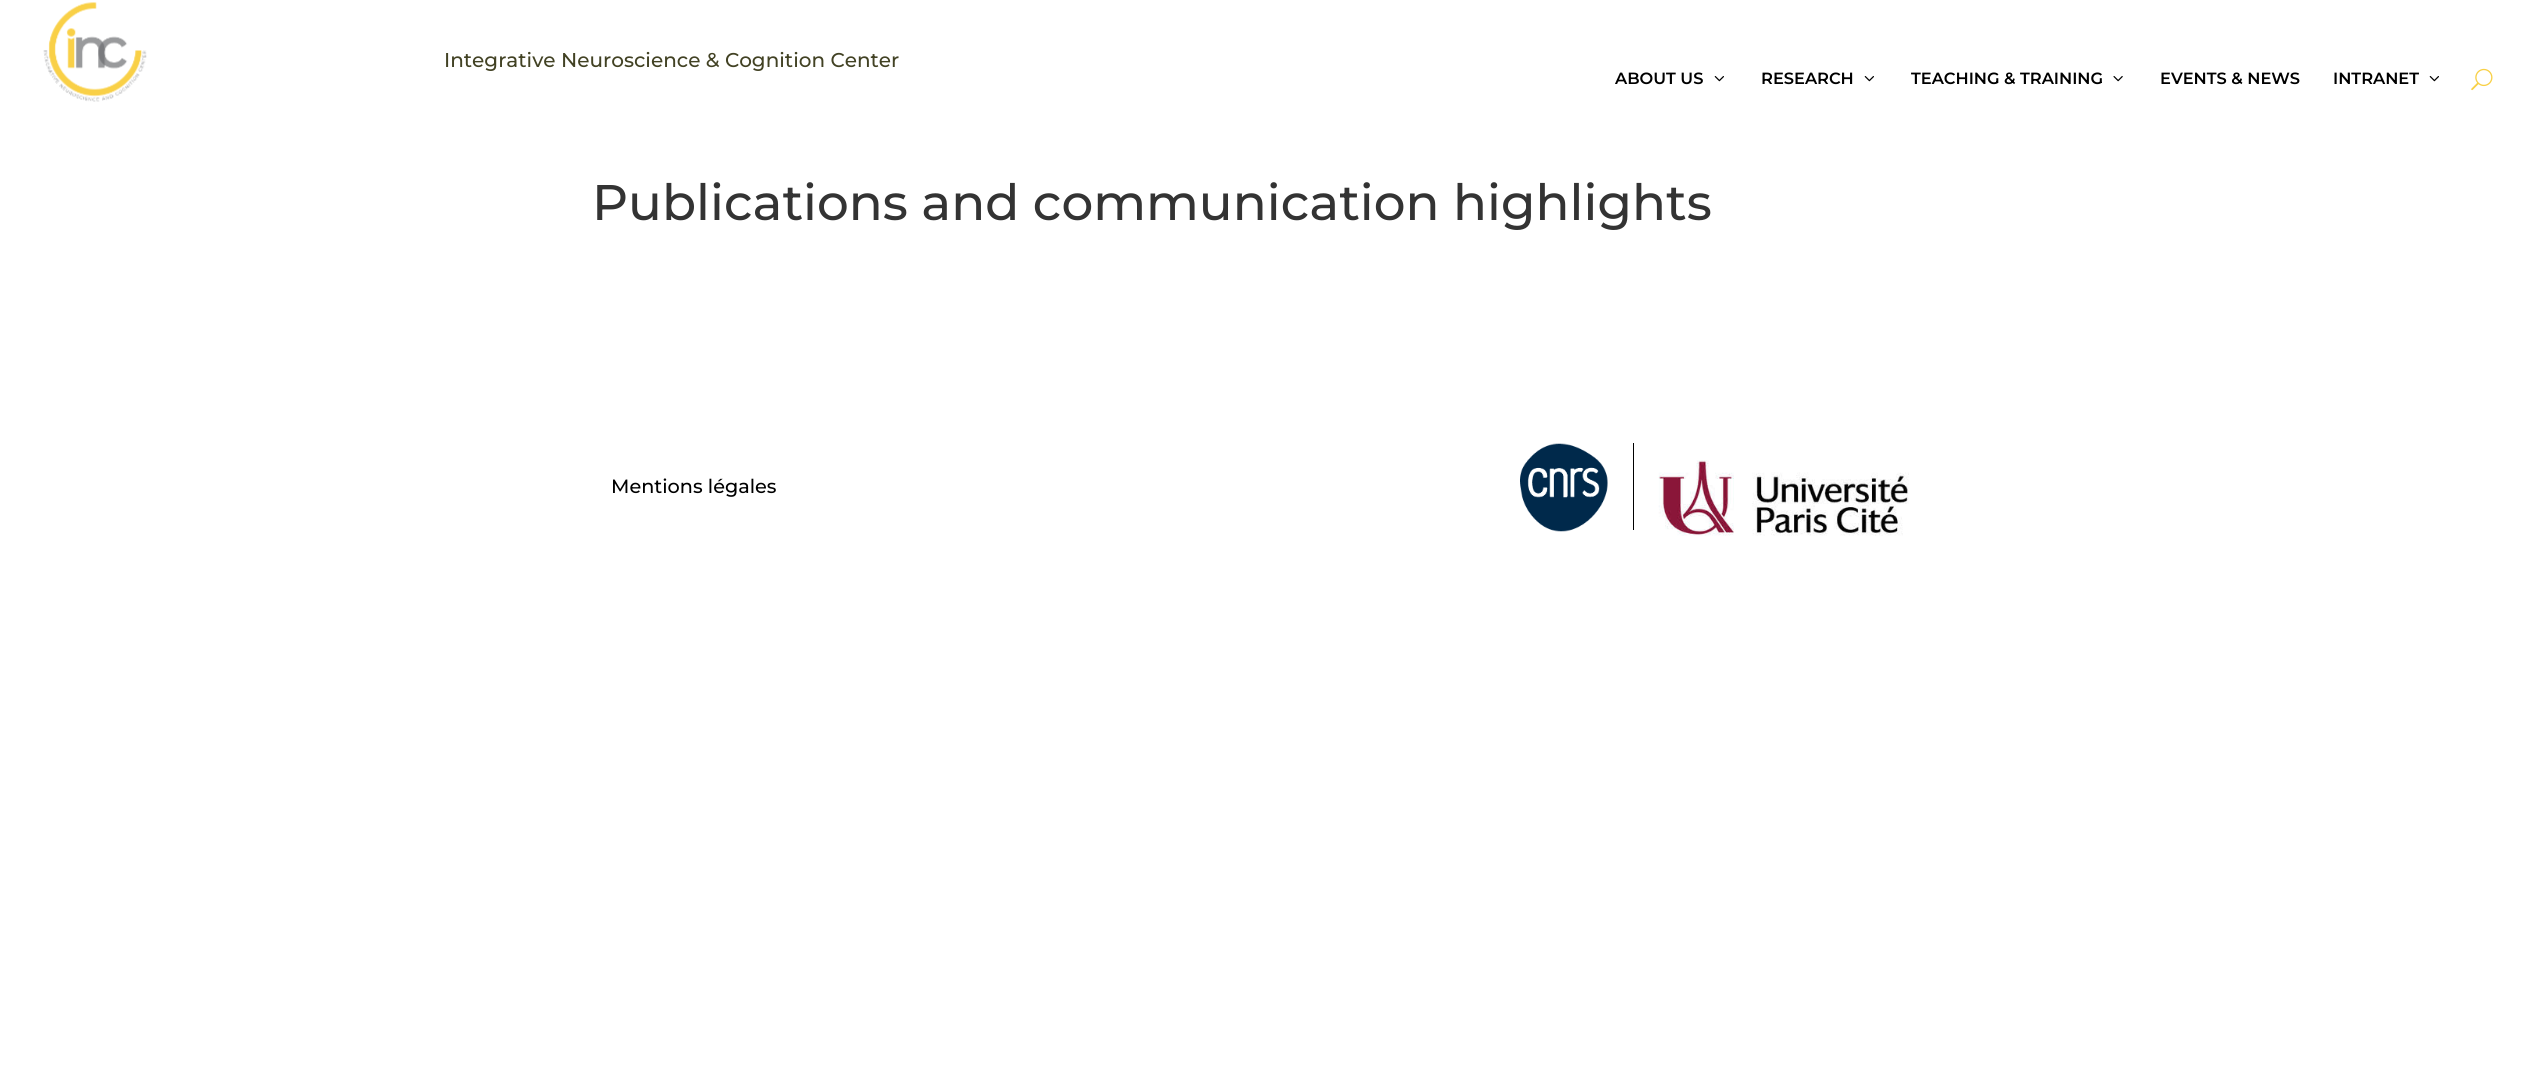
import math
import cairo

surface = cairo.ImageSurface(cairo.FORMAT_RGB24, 2533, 1086)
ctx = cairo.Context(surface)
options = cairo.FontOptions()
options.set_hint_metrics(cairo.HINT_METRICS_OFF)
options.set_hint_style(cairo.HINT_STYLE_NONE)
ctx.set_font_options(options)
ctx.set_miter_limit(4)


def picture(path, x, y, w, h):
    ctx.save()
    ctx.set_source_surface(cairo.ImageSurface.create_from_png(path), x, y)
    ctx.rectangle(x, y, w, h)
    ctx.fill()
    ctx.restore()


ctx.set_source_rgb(1, 1, 1)
ctx.paint()
picture("img1.png", 43, 2, 104, 100)
ctx.select_font_face("Montserrat Medium")
ctx.set_font_size(20)
ctx.set_source_rgb(0.259, 0.259, 0.141)
ctx.move_to(444, 67)
ctx.show_text("Integrative Neuroscience & Cognition Center")
ctx.select_font_face("Montserrat SemiBold")
ctx.set_font_size(16.25)
ctx.set_source_rgb(0, 0, 0)
ctx.move_to(1615, 84)
ctx.show_text("ABOUT US")
picture("img2.png", 1714, 76, 10, 6)
ctx.move_to(1761, 84)
ctx.show_text("RESEARCH")
picture("img2.png", 1864, 76, 10, 6)
ctx.move_to(1911, 84)
ctx.show_text("TEACHING & TRAINING")
picture("img3.png", 2113, 76, 10, 6)
ctx.move_to(2160, 84)
ctx.show_text("EVENTS & NEWS")
ctx.move_to(2333, 84)
ctx.show_text("INTRANET")
picture("img2.png", 2429, 76, 10, 6)
picture("img4.png", 2471, 68, 22, 23)
ctx.select_font_face("Montserrat Medium")
ctx.set_font_size(50)
ctx.set_source_rgb(0.2, 0.2, 0.2)
ctx.move_to(592, 220)
ctx.show_text("Publications and communication highlights")
ctx.set_font_size(19.25)
ctx.set_source_rgb(0, 0, 0)
ctx.move_to(611, 493)
ctx.show_text("Mentions légales")
ctx.rectangle(1633, 443, 1, 87)
ctx.fill()
picture("img5.png", 1520, 443, 88, 89)
picture("img6.png", 1658, 460, 251, 76)
surface.write_to_png("page.png")
